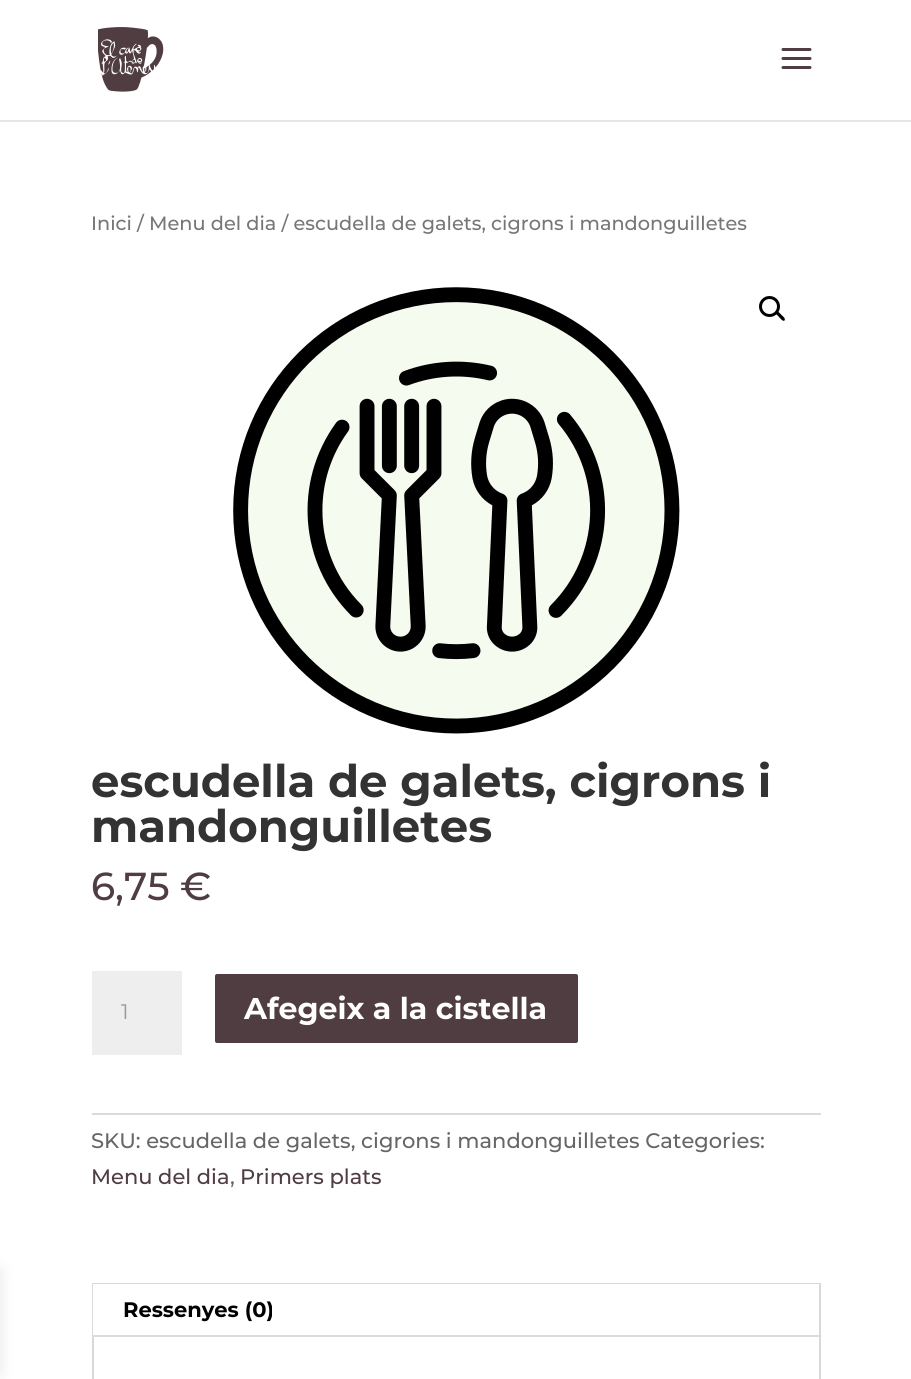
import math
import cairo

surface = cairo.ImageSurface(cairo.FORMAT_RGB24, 911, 1379)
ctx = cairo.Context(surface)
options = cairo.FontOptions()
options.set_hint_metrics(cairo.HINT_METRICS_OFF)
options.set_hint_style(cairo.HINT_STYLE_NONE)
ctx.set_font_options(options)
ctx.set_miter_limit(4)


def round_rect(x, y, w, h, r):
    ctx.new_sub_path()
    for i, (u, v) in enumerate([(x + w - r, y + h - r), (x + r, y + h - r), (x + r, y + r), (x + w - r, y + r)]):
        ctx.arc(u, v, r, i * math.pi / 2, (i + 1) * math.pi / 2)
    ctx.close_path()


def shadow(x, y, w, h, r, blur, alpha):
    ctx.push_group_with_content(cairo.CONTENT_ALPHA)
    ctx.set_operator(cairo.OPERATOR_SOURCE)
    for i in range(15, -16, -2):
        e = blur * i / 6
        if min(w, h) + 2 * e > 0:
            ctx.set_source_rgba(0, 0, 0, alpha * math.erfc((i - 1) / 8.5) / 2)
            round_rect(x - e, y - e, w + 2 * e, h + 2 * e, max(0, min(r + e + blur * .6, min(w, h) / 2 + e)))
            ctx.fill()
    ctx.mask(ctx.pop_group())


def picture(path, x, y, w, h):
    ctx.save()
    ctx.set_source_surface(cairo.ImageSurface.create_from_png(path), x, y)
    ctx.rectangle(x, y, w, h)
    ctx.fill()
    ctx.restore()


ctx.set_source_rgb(1, 1, 1)
ctx.paint()
ctx.set_source_rgb(0, 0, 0)
shadow(-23, 1271, 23, 102, 0, 7.5, 0.1)
ctx.set_source_rgb(0.902, 0.902, 0.902)
ctx.rectangle(0, 120, 911, 2)
ctx.fill()
picture("img1.png", 98, 27, 66, 65)
picture("img2.png", 781, 48, 31, 21)
ctx.select_font_face("Montserrat Medium")
ctx.set_font_size(19.3)
ctx.set_source_rgb(0.463, 0.463, 0.463)
ctx.move_to(91, 230)
ctx.show_text("Inici / Menu del dia / escudella de galets, cigrons i mandonguilletes")
picture("img3.png", 233, 287, 447, 447)
ctx.arc(769.5, 306.5, 9, 0, 2 * math.pi)
ctx.set_source_rgb(0, 0, 0)
ctx.set_line_width(3)
ctx.stroke()
ctx.new_path()
ctx.move_to(776, 312)
ctx.curve_to(777.5, 310, 780.5, 314, 781.5, 315)
ctx.curve_to(782.5, 316, 786, 318.5, 784.5, 320.5)
ctx.curve_to(783, 322, 780, 318, 779, 317)
ctx.curve_to(778.5, 316, 774.5, 313.5, 776, 312)
ctx.close_path()
ctx.fill()
ctx.select_font_face("Montserrat", cairo.FONT_SLANT_NORMAL, cairo.FONT_WEIGHT_BOLD)
ctx.set_font_size(45)
ctx.set_source_rgb(0.2, 0.2, 0.2)
ctx.move_to(91, 797)
ctx.show_text("escudella de galets, cigrons i")
ctx.move_to(91, 842)
ctx.show_text("mandonguilletes")
ctx.select_font_face("Montserrat Medium")
ctx.set_font_size(39)
ctx.set_source_rgb(0.314, 0.239, 0.259)
ctx.move_to(91, 900)
ctx.show_text("6,75 €")
ctx.set_source_rgb(0.933, 0.933, 0.933)
ctx.rectangle(92, 971, 90, 84)
ctx.fill()
ctx.select_font_face("Montserrat")
ctx.set_font_size(21)
ctx.set_source_rgb(0.6, 0.6, 0.6)
ctx.move_to(121, 1019)
ctx.show_text("1")
ctx.set_source_rgb(0.314, 0.239, 0.259)
round_rect(213.5, 972.5, 366, 72, 3.5)
ctx.fill_preserve()
ctx.set_source_rgb(1, 1, 1)
ctx.stroke()
ctx.select_font_face("Montserrat", cairo.FONT_SLANT_NORMAL, cairo.FONT_WEIGHT_BOLD)
ctx.set_font_size(30)
ctx.move_to(244, 1019)
ctx.show_text("Afegeix a la cistella")
ctx.set_source_rgb(0.855, 0.855, 0.855)
ctx.rectangle(92, 1113, 729, 2)
ctx.fill()
ctx.select_font_face("Montserrat Medium")
ctx.set_font_size(21)
ctx.set_source_rgb(0.4, 0.4, 0.4)
ctx.move_to(91, 1148)
ctx.show_text("SKU: escudella de galets, cigrons i mandonguilletes Categories:")
ctx.set_source_rgb(0.314, 0.239, 0.259)
ctx.move_to(91, 1184)
ctx.show_text("Menu del dia")
ctx.set_source_rgb(0.4, 0.4, 0.4)
ctx.move_to(230, 1184)
ctx.show_text(",")
ctx.set_source_rgb(0.314, 0.239, 0.259)
ctx.move_to(240, 1184)
ctx.show_text("Primers plats")
ctx.rectangle(93, 1284, 727, 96)
ctx.set_source_rgb(0.851, 0.851, 0.851)
ctx.set_line_width(2)
ctx.stroke()
ctx.set_source_rgb(1, 1, 1)
ctx.rectangle(93, 1284, 726, 51)
ctx.fill()
ctx.set_source_rgb(0.878, 0.855, 0.875)
ctx.rectangle(93, 1335, 726, 2)
ctx.fill()
ctx.select_font_face("Montserrat", cairo.FONT_SLANT_NORMAL, cairo.FONT_WEIGHT_BOLD)
ctx.set_source_rgb(0, 0, 0)
ctx.move_to(123, 1317)
ctx.show_text("Ressenyes (0)")
surface.write_to_png("page.png")
